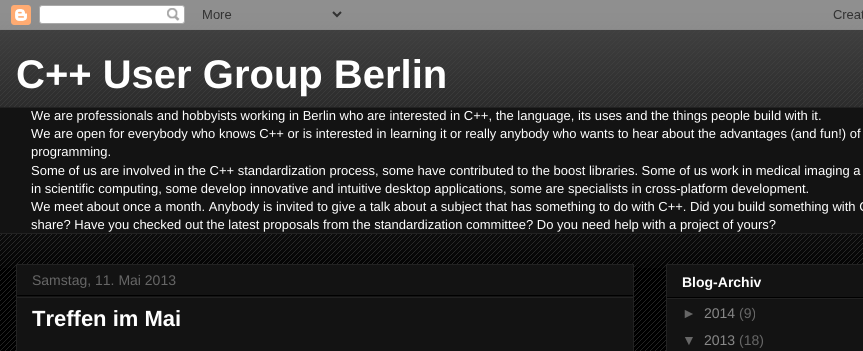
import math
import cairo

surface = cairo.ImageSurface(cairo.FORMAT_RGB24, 863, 351)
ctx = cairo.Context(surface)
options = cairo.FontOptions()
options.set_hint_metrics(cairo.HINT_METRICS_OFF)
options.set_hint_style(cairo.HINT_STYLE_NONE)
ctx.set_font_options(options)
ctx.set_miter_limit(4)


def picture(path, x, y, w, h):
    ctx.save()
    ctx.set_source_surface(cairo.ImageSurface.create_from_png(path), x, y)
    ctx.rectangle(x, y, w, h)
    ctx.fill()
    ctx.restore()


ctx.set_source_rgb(0, 0, 0)
ctx.paint()
picture("img1.png", 0, 13, 863, 338)
picture("img2.png", 0, 0, 863, 268)
picture("img3.png", 0, 0, 863, 30)
ctx.select_font_face("Liberation Sans", cairo.FONT_SLANT_NORMAL, cairo.FONT_WEIGHT_BOLD)
ctx.set_font_size(40)
ctx.set_source_rgb(1, 1, 1)
ctx.move_to(16, 88)
ctx.show_text("C++ User Group Berlin")
ctx.set_source_rgb(0.078, 0.078, 0.078)
ctx.rectangle(0, 108, 863, 125)
ctx.fill()
ctx.set_source_rgb(0.133, 0.133, 0.133)
ctx.rectangle(0, 107, 863, 1)
ctx.fill()
ctx.select_font_face("Liberation Sans")
ctx.set_font_size(13)
ctx.set_source_rgb(1, 1, 1)
ctx.move_to(31, 120)
ctx.show_text("We are professionals and hobbyists working in Berlin who are interested in C++, the language, its uses and the things people build with it.")
ctx.move_to(31, 138)
ctx.show_text("We are open for everybody who knows C++ or is interested in learning it or really anybody who wants to hear about the advantages (and fun!) of")
ctx.move_to(31, 156)
ctx.show_text("programming.")
ctx.move_to(31, 175)
ctx.show_text("Some of us are involved in the C++ standardization process, some have contributed to the boost libraries. Some of us work in medical imaging a")
ctx.move_to(31, 193)
ctx.show_text("in scientific computing, some develop innovative and intuitive desktop applications, some are specialists in cross-platform development.")
ctx.move_to(31, 211)
ctx.show_text("We meet about once a month. Anybody is invited to give a talk about a subject that has something to do with C++. Did you build something with C")
ctx.move_to(31, 229)
ctx.show_text("share? Have you checked out the latest proposals from the standardization committee? Do you need help with a project of yours?")
ctx.set_source_rgb(0.133, 0.133, 0.133)
ctx.rectangle(0, 233, 863, 1)
ctx.fill()
ctx.set_source_rgb(0.078, 0.078, 0.078)
ctx.rectangle(16.5, 264.5, 617, 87)
ctx.fill_preserve()
ctx.set_source_rgb(0.133, 0.133, 0.133)
ctx.set_line_width(1)
ctx.stroke()
ctx.set_source_rgb(0, 0, 0)
ctx.rectangle(17, 295, 616, 1)
ctx.fill()
ctx.set_font_size(14)
ctx.set_source_rgb(0.4, 0.4, 0.4)
ctx.move_to(32, 285)
ctx.show_text("Samstag, 11. Mai 2013")
ctx.set_source_rgb(0.133, 0.133, 0.133)
ctx.rectangle(17, 297, 616, 1)
ctx.fill()
ctx.select_font_face("Liberation Sans", cairo.FONT_SLANT_NORMAL, cairo.FONT_WEIGHT_BOLD)
ctx.set_font_size(22)
ctx.set_source_rgb(1, 1, 1)
ctx.move_to(32, 326)
ctx.show_text("Treffen im Mai")
ctx.set_source_rgb(0.078, 0.078, 0.078)
ctx.rectangle(666.5, 264.5, 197, 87)
ctx.fill_preserve()
ctx.set_source_rgb(0.133, 0.133, 0.133)
ctx.stroke()
ctx.set_source_rgb(0, 0, 0)
ctx.rectangle(667, 297, 196, 1)
ctx.fill()
ctx.set_font_size(14)
ctx.set_source_rgb(1, 1, 1)
ctx.move_to(682, 287)
ctx.show_text("Blog-Archiv")
ctx.set_source_rgb(0.133, 0.133, 0.133)
ctx.rectangle(667, 298, 196, 1)
ctx.fill()
ctx.select_font_face("Liberation Sans")
ctx.set_source_rgb(0.4, 0.4, 0.4)
ctx.move_to(682, 318)
ctx.show_text("►")
ctx.set_source_rgb(0.533, 0.533, 0.533)
ctx.move_to(704, 318)
ctx.show_text("2014")
ctx.set_source_rgb(0.4, 0.4, 0.4)
ctx.move_to(739, 318)
ctx.show_text("(9)")
ctx.move_to(682, 345)
ctx.show_text("▼")
ctx.set_source_rgb(0.533, 0.533, 0.533)
ctx.move_to(704, 345)
ctx.show_text("2013")
ctx.set_source_rgb(0.4, 0.4, 0.4)
ctx.move_to(739, 345)
ctx.show_text("(18)")
surface.write_to_png("page.png")
